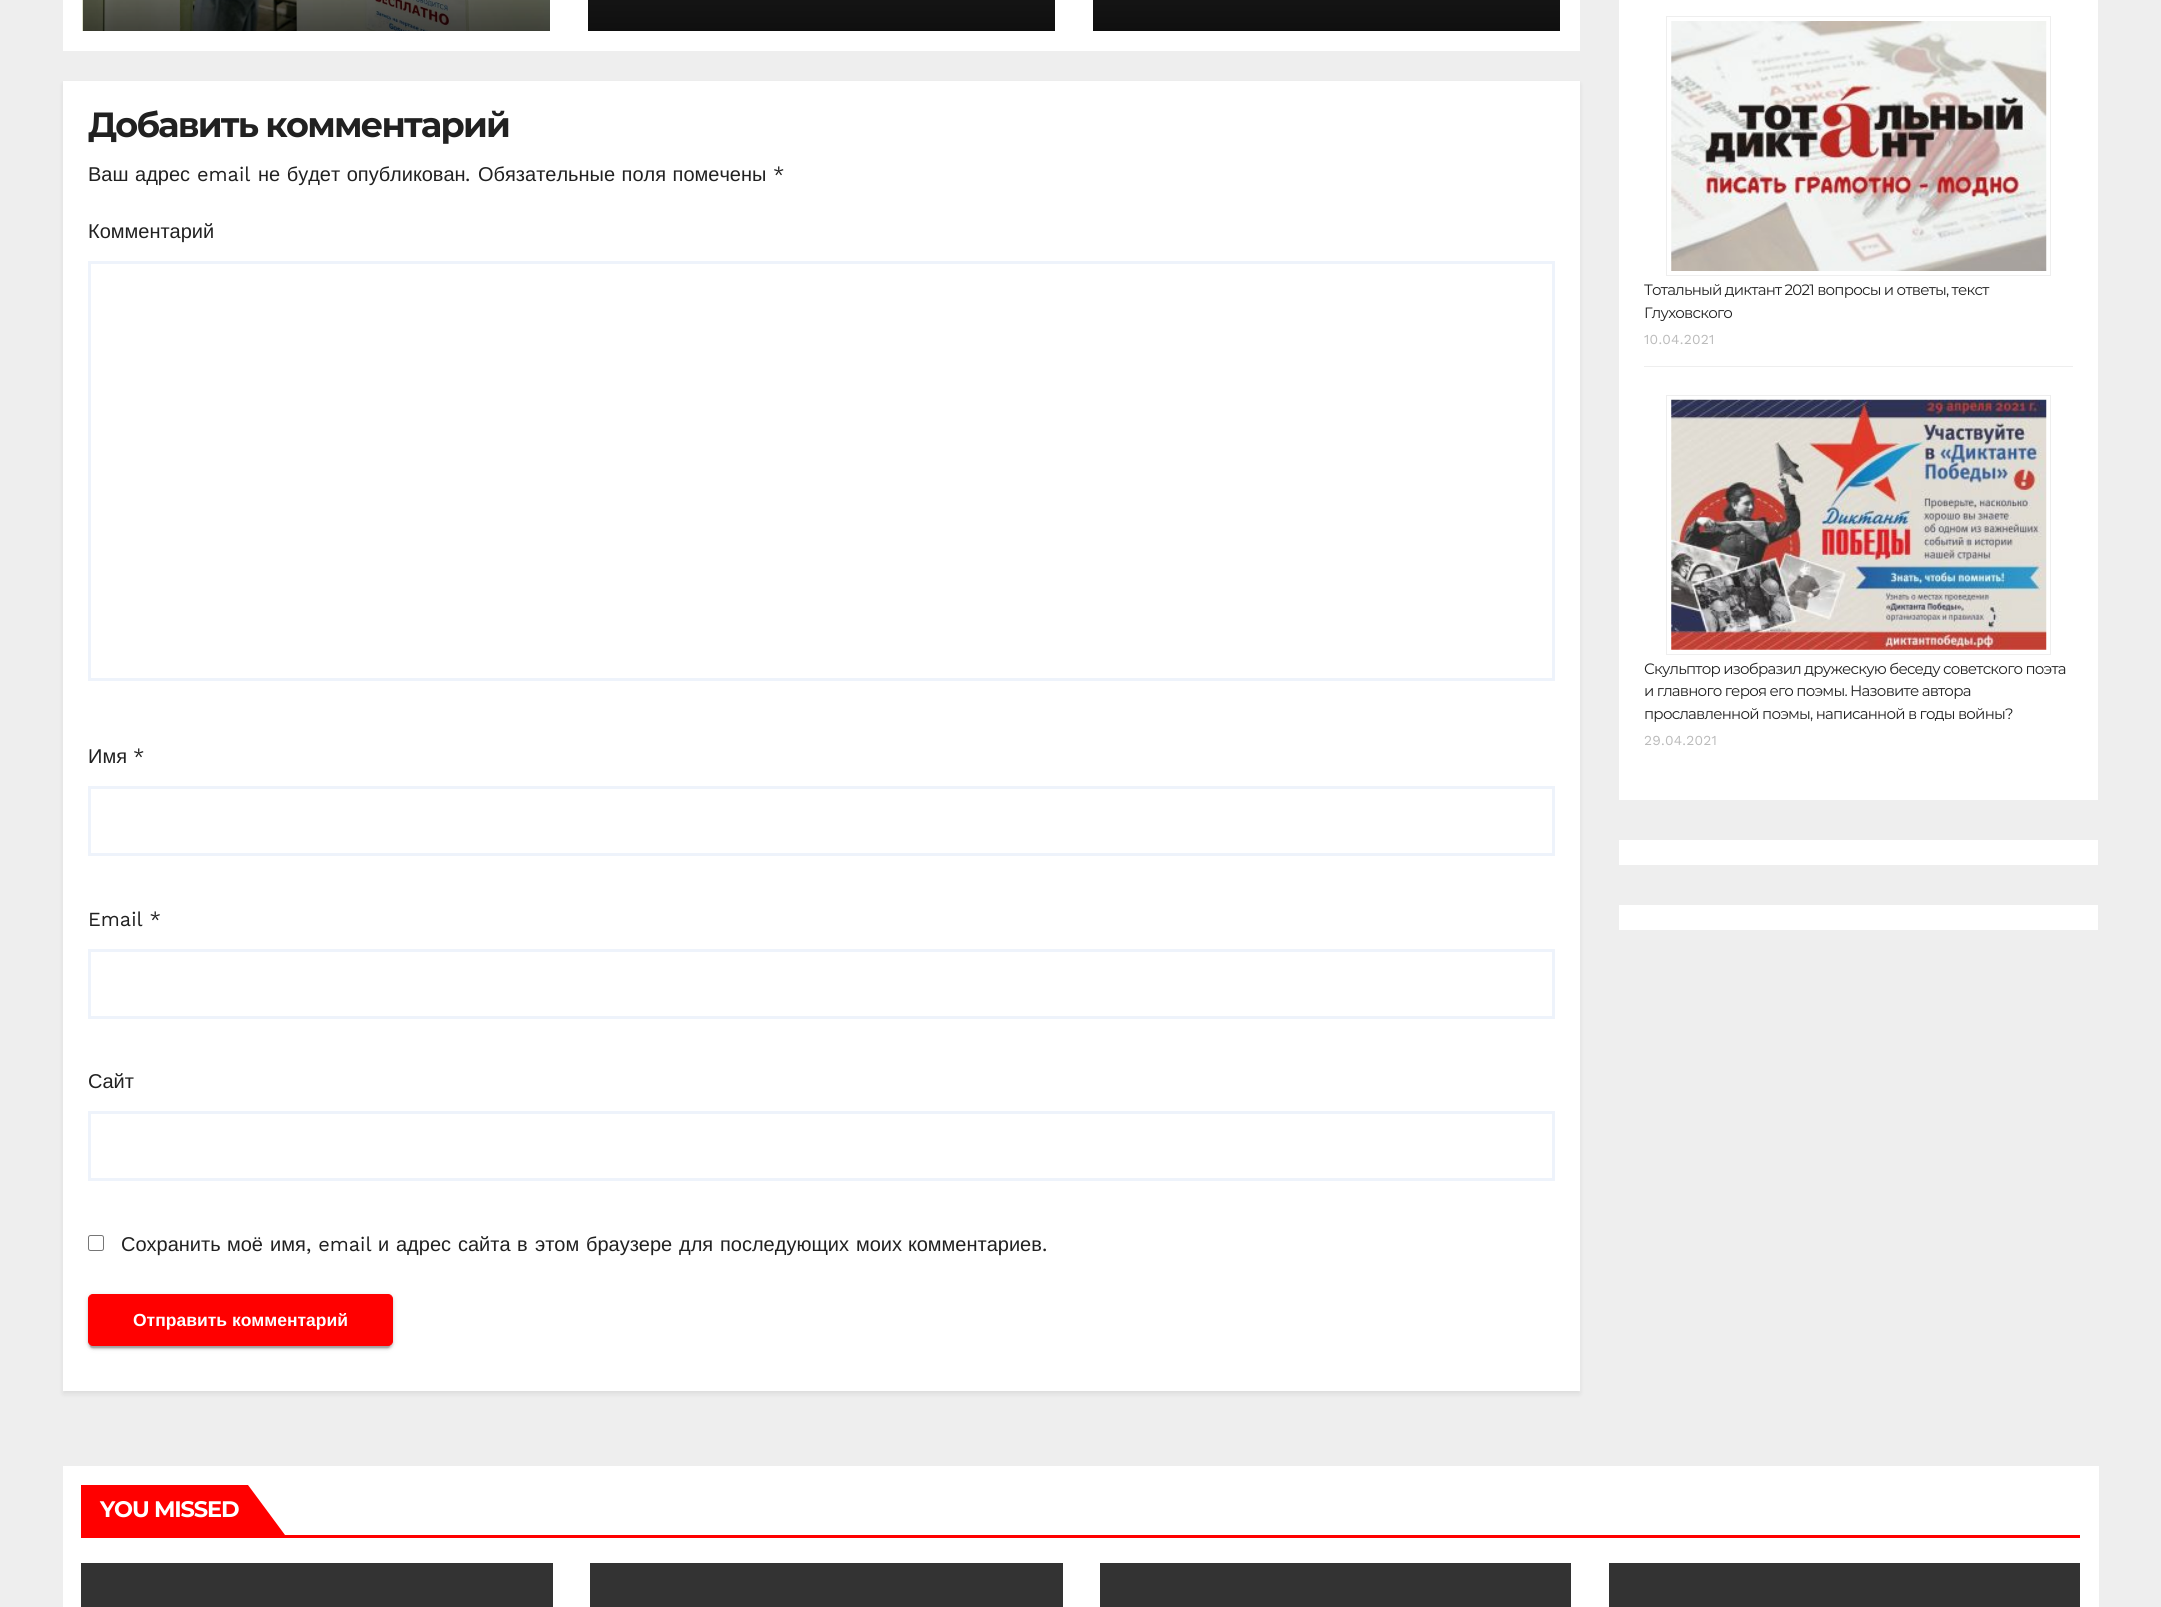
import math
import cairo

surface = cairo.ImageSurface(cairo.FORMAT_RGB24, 2161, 1607)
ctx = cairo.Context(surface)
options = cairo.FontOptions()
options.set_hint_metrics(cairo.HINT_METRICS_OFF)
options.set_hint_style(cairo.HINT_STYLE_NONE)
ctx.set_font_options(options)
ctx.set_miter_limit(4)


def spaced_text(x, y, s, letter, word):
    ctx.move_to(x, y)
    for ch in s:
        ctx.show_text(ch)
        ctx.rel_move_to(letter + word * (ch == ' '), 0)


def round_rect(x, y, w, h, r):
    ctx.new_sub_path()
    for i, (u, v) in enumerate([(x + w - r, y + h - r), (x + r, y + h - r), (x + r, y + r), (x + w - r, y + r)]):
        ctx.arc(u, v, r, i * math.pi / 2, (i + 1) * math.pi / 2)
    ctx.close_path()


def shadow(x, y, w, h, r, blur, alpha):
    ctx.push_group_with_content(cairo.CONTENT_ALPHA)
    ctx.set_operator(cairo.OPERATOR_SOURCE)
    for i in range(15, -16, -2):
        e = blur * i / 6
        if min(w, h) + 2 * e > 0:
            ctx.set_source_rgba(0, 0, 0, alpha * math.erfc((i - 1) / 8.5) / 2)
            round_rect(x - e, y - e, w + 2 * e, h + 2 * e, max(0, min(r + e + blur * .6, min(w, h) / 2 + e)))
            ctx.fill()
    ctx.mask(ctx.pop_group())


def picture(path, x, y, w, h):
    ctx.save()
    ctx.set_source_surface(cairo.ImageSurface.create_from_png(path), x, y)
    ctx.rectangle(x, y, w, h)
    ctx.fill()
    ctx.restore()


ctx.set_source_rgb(0.933, 0.933, 0.933)
ctx.paint()
ctx.set_source_rgb(1, 1, 1)
ctx.rectangle(63, 0, 1517, 51)
ctx.fill()
picture("img1.png", 82, 0, 468, 31)
gradient = cairo.LinearGradient(821, -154, 821, 31)
gradient.add_color_stop_rgba(0, 0.2, 0.2, 0.2, 1)
gradient.add_color_stop_rgba(0.5, 0.122, 0.122, 0.122, 1)
gradient.add_color_stop_rgba(1, 0.059, 0.059, 0.059, 1)
ctx.set_source(gradient)
ctx.rectangle(588, 0, 467, 31)
ctx.fill()
gradient = cairo.LinearGradient(1326, -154, 1326, 31)
gradient.add_color_stop_rgba(0, 0.2, 0.2, 0.2, 1)
gradient.add_color_stop_rgba(0.5, 0.122, 0.122, 0.122, 1)
gradient.add_color_stop_rgba(1, 0.059, 0.059, 0.059, 1)
ctx.set_source(gradient)
ctx.rectangle(1093, 0, 467, 31)
ctx.fill()
ctx.set_source_rgb(0, 0, 0)
shadow(63, 84, 1517, 1310, 0, 2.5, 0.08)
ctx.set_source_rgb(1, 1, 1)
ctx.rectangle(63, 81, 1517, 1310)
ctx.fill()
ctx.select_font_face("Montserrat", cairo.FONT_SLANT_NORMAL, cairo.FONT_WEIGHT_BOLD)
ctx.set_font_size(35)
ctx.set_source_rgb(0.129, 0.129, 0.129)
spaced_text(88, 137, "Добавить комментарий", -1.75, 0)
ctx.select_font_face("Liberation Sans")
ctx.set_font_size(20)
spaced_text(88, 181, "Ваш адрес", 0, 1)
ctx.select_font_face("Work Sans")
ctx.move_to(197, 181)
ctx.show_text("email")
ctx.select_font_face("Liberation Sans")
spaced_text(258, 181, "не будет опубликован", 0, 1)
ctx.select_font_face("Work Sans")
ctx.move_to(465, 181)
ctx.show_text(".")
ctx.select_font_face("Liberation Sans")
spaced_text(478, 181, "Обязательные поля помечены", 0, 1)
ctx.select_font_face("Work Sans")
ctx.move_to(773, 181)
ctx.show_text("*")
ctx.select_font_face("Liberation Sans")
ctx.move_to(88, 238)
ctx.show_text("Комментарий")
ctx.rectangle(89.5, 262.5, 1464, 417)
ctx.set_source_rgb(0.933, 0.953, 0.984)
ctx.set_line_width(3)
ctx.stroke()
ctx.set_source_rgb(0.129, 0.129, 0.129)
ctx.move_to(88, 763)
ctx.show_text("Имя")
ctx.select_font_face("Work Sans")
ctx.move_to(133, 763)
ctx.show_text("*")
ctx.rectangle(89.5, 787.5, 1464, 67)
ctx.set_source_rgb(0.933, 0.953, 0.984)
ctx.stroke()
ctx.set_source_rgb(0.129, 0.129, 0.129)
ctx.move_to(88, 926)
ctx.show_text("Email *")
ctx.rectangle(89.5, 950.5, 1464, 67)
ctx.set_source_rgb(0.933, 0.953, 0.984)
ctx.stroke()
ctx.select_font_face("Liberation Sans")
ctx.set_source_rgb(0.129, 0.129, 0.129)
ctx.move_to(88, 1088)
ctx.show_text("Сайт")
ctx.rectangle(89.5, 1112.5, 1464, 67)
ctx.set_source_rgb(0.933, 0.953, 0.984)
ctx.stroke()
round_rect(88.5, 1235.5, 15, 15, 2)
ctx.set_source_rgb(0.463, 0.463, 0.463)
ctx.set_line_width(1)
ctx.stroke()
ctx.set_source_rgb(0.129, 0.129, 0.129)
ctx.move_to(121, 1251)
ctx.show_text("Сохранить")
ctx.move_to(227, 1251)
ctx.show_text("моё")
ctx.move_to(270, 1251)
ctx.show_text("имя")
ctx.select_font_face("Work Sans")
ctx.move_to(306, 1251)
ctx.show_text(", email")
ctx.select_font_face("Liberation Sans")
ctx.move_to(378, 1251)
ctx.show_text("и")
ctx.move_to(396, 1251)
ctx.show_text("адрес")
ctx.move_to(458, 1251)
ctx.show_text("сайта")
ctx.move_to(517, 1251)
ctx.show_text("в")
ctx.move_to(535, 1251)
ctx.show_text("этом")
ctx.move_to(586, 1251)
ctx.show_text("браузере")
ctx.move_to(679, 1251)
ctx.show_text("для")
ctx.move_to(720, 1251)
ctx.show_text("последующих")
ctx.move_to(856, 1251)
ctx.show_text("моих")
ctx.move_to(908, 1251)
ctx.show_text("комментариев")
ctx.select_font_face("Work Sans")
ctx.move_to(1042, 1251)
ctx.show_text(".")
ctx.set_source_rgb(0, 0, 0)
shadow(88, 1295, 305, 53, 5, 3, 0.12)
shadow(90, 1300, 300, 48, 2.5, 0.5, 0.2)
shadow(88, 1296, 305, 53, 5, 1, 0.14)
ctx.set_source_rgb(1, 0, 0)
round_rect(88.5, 1294.5, 304, 51, 4.5)
ctx.fill_preserve()
ctx.stroke()
ctx.select_font_face("Liberation Sans", cairo.FONT_SLANT_NORMAL, cairo.FONT_WEIGHT_BOLD)
ctx.set_font_size(17.5)
ctx.set_source_rgb(1, 1, 1)
ctx.move_to(133, 1326)
ctx.show_text("Отправить комментарий")
ctx.rectangle(1619, 0, 479, 800)
ctx.fill()
ctx.set_source_rgb(0.933, 0.933, 0.933)
ctx.rectangle(1644, 366, 429, 1)
ctx.fill()
ctx.rectangle(1666.5, 16.5, 384, 259)
ctx.stroke()
picture("img2.png", 1671, 21, 376, 250)
ctx.select_font_face("Montserrat")
ctx.set_font_size(15)
ctx.set_source_rgb(0.129, 0.129, 0.129)
spaced_text(1644, 295, "Тотальный диктант 2021 вопросы и ответы, текст", -0.75, 0)
spaced_text(1644, 318, "Глуховского", -0.75, 0)
ctx.select_font_face("Work Sans")
ctx.set_font_size(13.75)
ctx.set_source_rgb(0.733, 0.733, 0.733)
spaced_text(1644, 344, "10.04.2021", 0.25, 0)
ctx.rectangle(1666.5, 395.5, 384, 259)
ctx.set_source_rgb(0.933, 0.933, 0.933)
ctx.stroke()
picture("img3.png", 1671, 399, 376, 251)
ctx.select_font_face("Montserrat")
ctx.set_font_size(15)
ctx.set_source_rgb(0.129, 0.129, 0.129)
spaced_text(1644, 674, "Скульптор изобразил дружескую беседу советского поэта", -0.75, 0)
spaced_text(1644, 696, "и главного героя его поэмы. Назовите автора", -0.75, 0)
spaced_text(1644, 719, "прославленной поэмы, написанной в годы войны?", -0.75, 0)
ctx.select_font_face("Work Sans")
ctx.set_font_size(13.75)
ctx.set_source_rgb(0.733, 0.733, 0.733)
spaced_text(1644, 745, "29.04.2021", 0.25, 0)
ctx.set_source_rgb(1, 1, 1)
ctx.rectangle(1619, 840, 479, 25)
ctx.fill()
ctx.rectangle(1619, 905, 479, 25)
ctx.fill()
ctx.rectangle(63, 1466, 2036, 141)
ctx.fill()
ctx.set_source_rgb(1, 0, 0)
ctx.rectangle(81, 1535, 1999, 3)
ctx.fill()
ctx.rectangle(81, 1485, 167, 50)
ctx.fill()
ctx.select_font_face("Montserrat", cairo.FONT_SLANT_NORMAL, cairo.FONT_WEIGHT_BOLD)
ctx.set_font_size(22.5)
ctx.set_source_rgb(1, 1, 1)
spaced_text(100, 1517, "YOU MISSED", -1.1, 0)
ctx.set_source_rgb(1, 0, 0)
ctx.new_path()
ctx.move_to(248, 1535)
ctx.line_to(248, 1485)
ctx.line_to(285, 1535)
ctx.close_path()
ctx.fill()
ctx.set_source_rgb(0.2, 0.2, 0.2)
ctx.rectangle(81, 1563, 472, 44)
ctx.fill()
ctx.rectangle(590, 1563, 473, 44)
ctx.fill()
ctx.rectangle(1100, 1563, 471, 44)
ctx.fill()
ctx.rectangle(1609, 1563, 471, 44)
ctx.fill()
surface.write_to_png("page.png")
